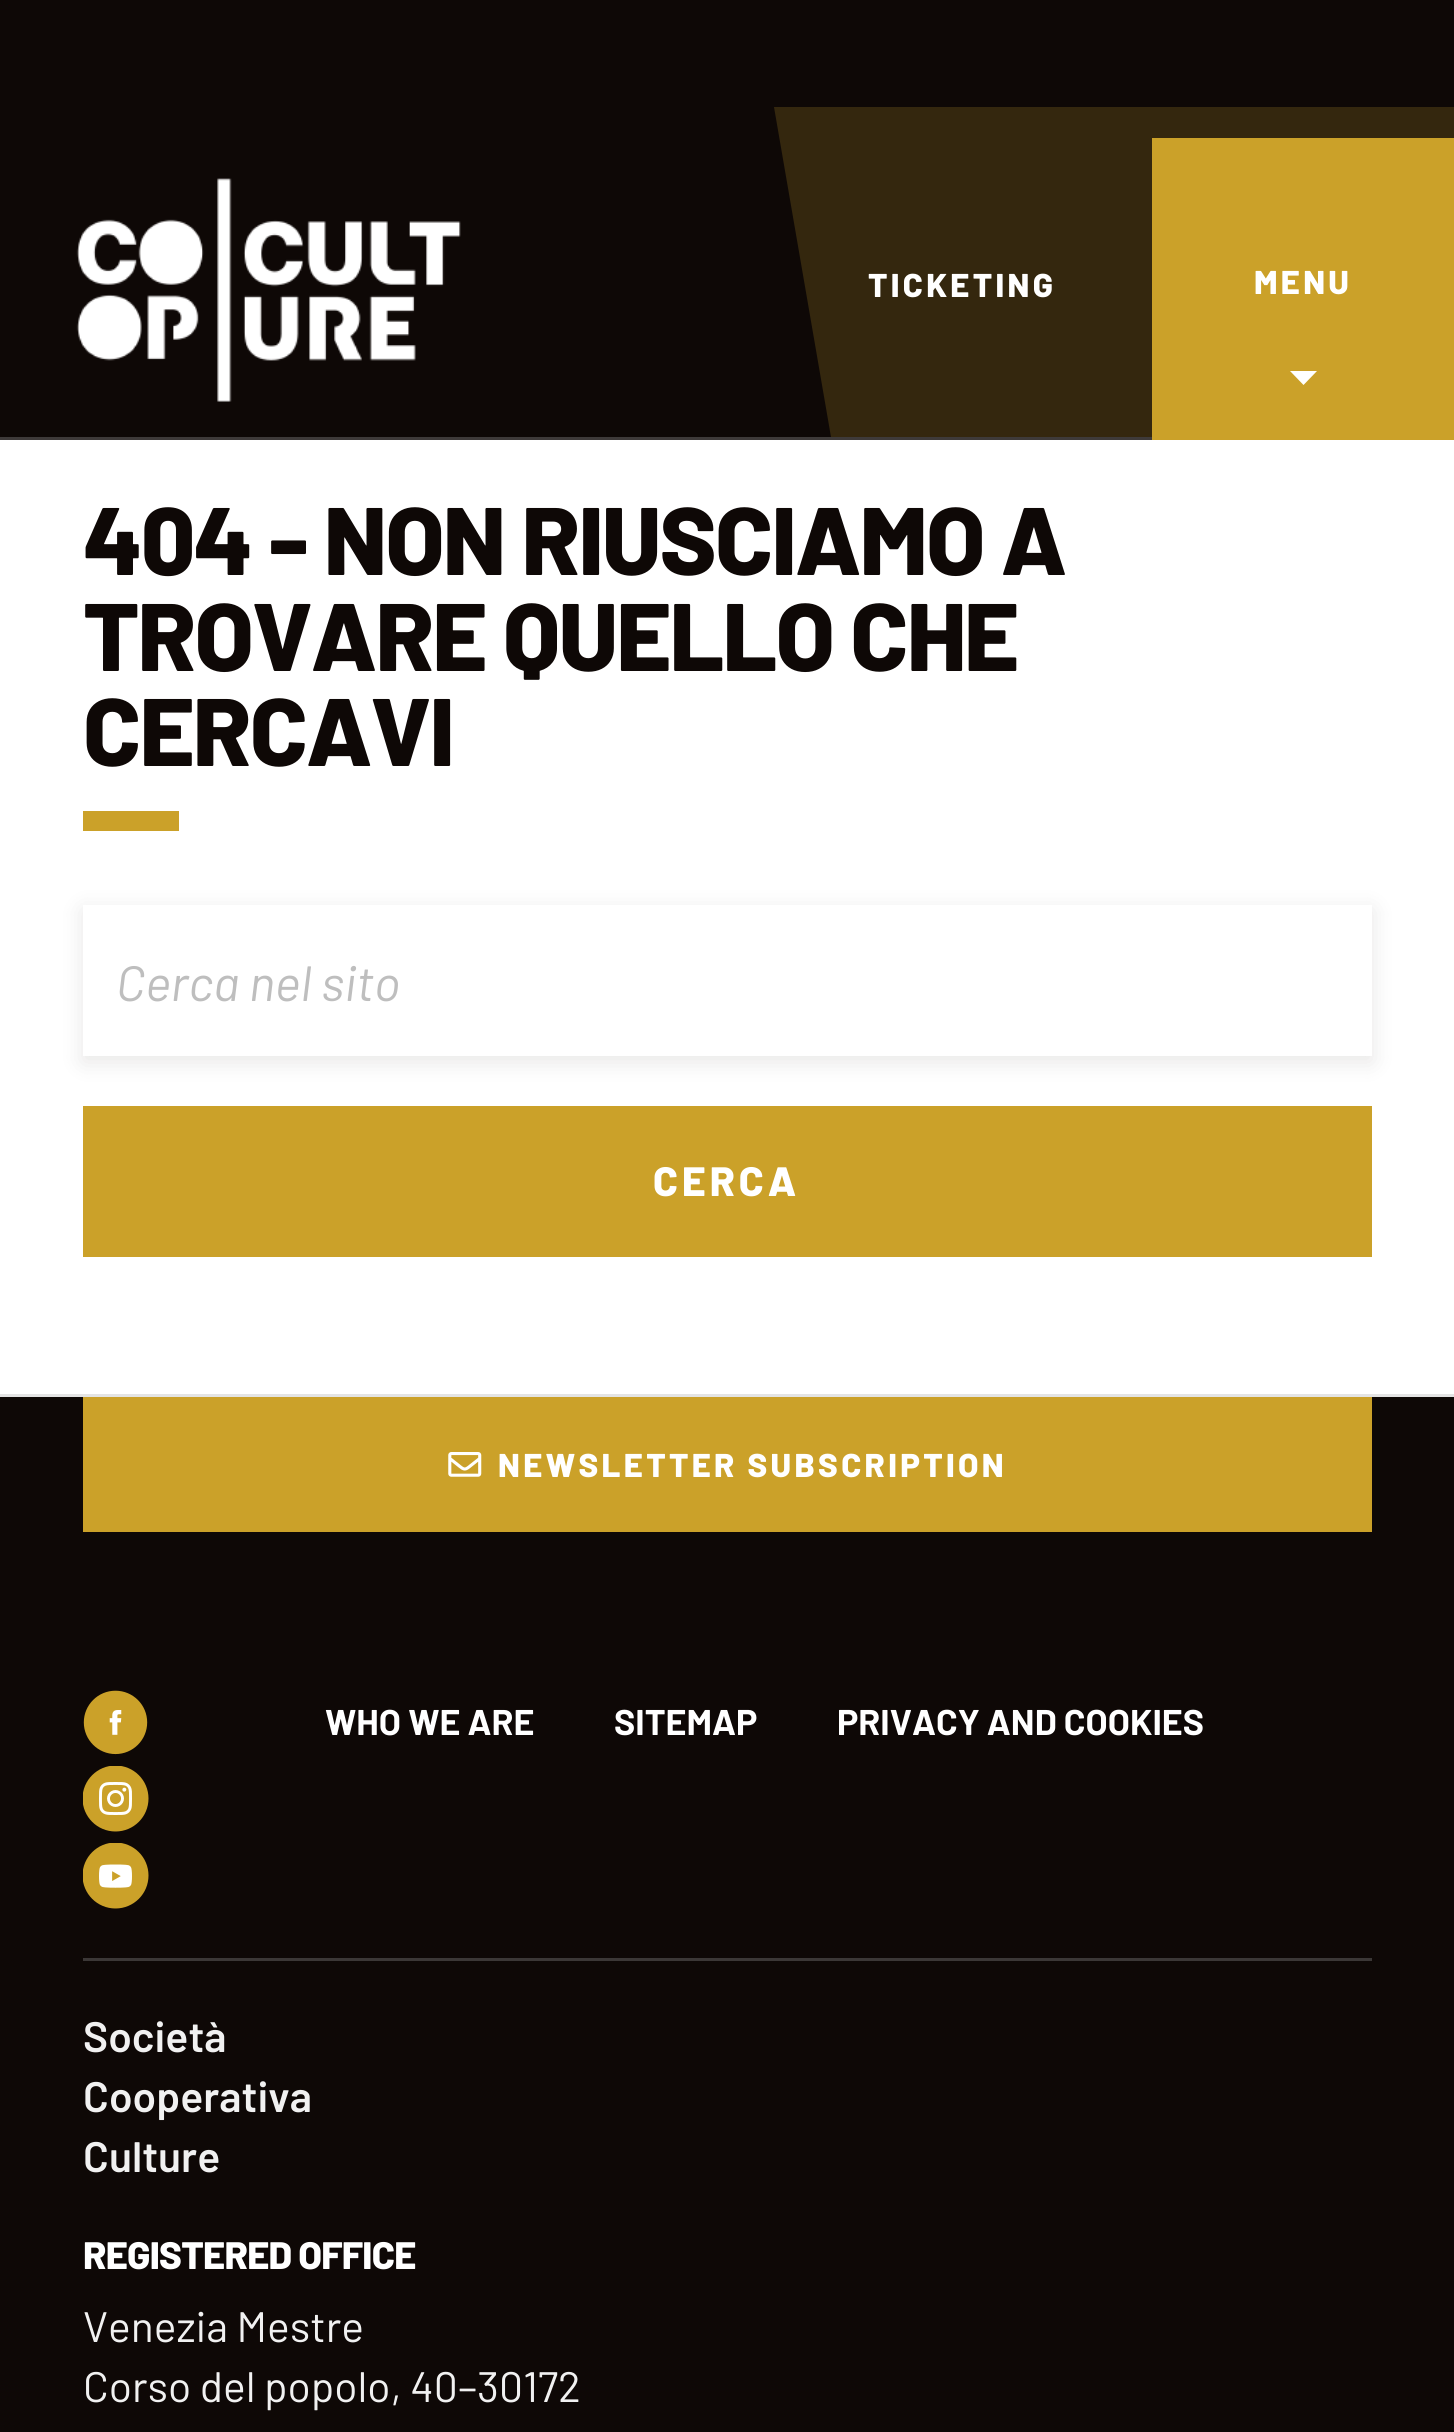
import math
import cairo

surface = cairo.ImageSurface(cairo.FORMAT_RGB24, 1454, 2432)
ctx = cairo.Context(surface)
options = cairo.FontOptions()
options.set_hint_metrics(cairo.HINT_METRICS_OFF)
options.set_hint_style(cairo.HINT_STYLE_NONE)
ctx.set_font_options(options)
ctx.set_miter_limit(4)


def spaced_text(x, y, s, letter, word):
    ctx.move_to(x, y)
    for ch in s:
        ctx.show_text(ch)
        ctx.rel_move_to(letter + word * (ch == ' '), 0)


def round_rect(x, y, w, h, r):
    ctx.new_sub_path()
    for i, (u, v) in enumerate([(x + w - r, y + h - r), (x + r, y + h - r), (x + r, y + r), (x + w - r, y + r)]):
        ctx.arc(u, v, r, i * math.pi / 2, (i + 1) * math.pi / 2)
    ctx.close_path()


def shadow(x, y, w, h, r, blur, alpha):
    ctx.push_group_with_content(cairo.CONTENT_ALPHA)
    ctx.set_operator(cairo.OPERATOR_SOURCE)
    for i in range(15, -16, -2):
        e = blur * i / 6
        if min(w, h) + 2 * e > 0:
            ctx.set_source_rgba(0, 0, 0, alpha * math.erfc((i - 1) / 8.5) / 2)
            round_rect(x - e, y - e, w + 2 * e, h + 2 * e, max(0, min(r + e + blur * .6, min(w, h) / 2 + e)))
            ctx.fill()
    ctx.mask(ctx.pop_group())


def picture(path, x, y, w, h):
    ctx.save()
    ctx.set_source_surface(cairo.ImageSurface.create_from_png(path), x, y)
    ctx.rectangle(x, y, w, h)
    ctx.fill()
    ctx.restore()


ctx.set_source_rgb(1, 1, 1)
ctx.paint()
ctx.set_source_rgb(0.055, 0.035, 0.027)
ctx.rectangle(0, 0, 1454, 437)
ctx.fill()
ctx.set_source_rgb(0.204, 0.153, 0.055)
ctx.new_path()
ctx.move_to(774, 107)
ctx.line_to(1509, 107)
ctx.line_to(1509, 437)
ctx.line_to(831, 437)
ctx.close_path()
ctx.fill()
ctx.set_source_rgb(0.243, 0.227, 0.224)
ctx.rectangle(0, 437, 1152, 3)
ctx.fill()
picture("img1.png", 76, 178, 385, 224)
ctx.select_font_face("Barlow ExtraBold")
ctx.set_font_size(33)
ctx.set_source_rgb(1, 1, 1)
spaced_text(868, 297, "TICKETING", 3.3, 0)
ctx.set_source_rgb(0.796, 0.631, 0.161)
ctx.rectangle(1152, 138, 302, 302)
ctx.fill()
ctx.set_source_rgb(1, 1, 1)
ctx.new_path()
ctx.move_to(1303.5, 385)
ctx.line_to(1317, 371)
ctx.line_to(1290, 371)
ctx.close_path()
ctx.fill()
spaced_text(1254, 294, "MENU", 3.3, 0)
ctx.set_source_rgb(0.894, 0.894, 0.894)
ctx.rectangle(0, 1394, 1454, 3)
ctx.fill()
ctx.set_font_size(95.75)
ctx.set_source_rgb(0.055, 0.035, 0.027)
spaced_text(83, 575, "404 - NON RIUSCIAMO A", -1.9, 0)
spaced_text(83, 671, "TROVARE QUELLO CHE", -1.9, 0)
spaced_text(83, 766, "CERCAVI", -1.9, 0)
ctx.set_source_rgb(0.796, 0.631, 0.161)
ctx.rectangle(83, 811, 96, 20)
ctx.fill()
ctx.save()
ctx.set_fill_rule(cairo.FILL_RULE_EVEN_ODD)
ctx.new_path()
ctx.move_to(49, 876)
ctx.line_to(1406, 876)
ctx.line_to(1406, 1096)
ctx.line_to(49, 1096)
ctx.close_path()
ctx.move_to(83, 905)
ctx.line_to(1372, 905)
ctx.line_to(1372, 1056)
ctx.line_to(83, 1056)
ctx.close_path()
ctx.clip()
ctx.set_source_rgb(0.055, 0.035, 0.027)
shadow(83, 910, 1289, 152, 0, 11, 0.1)
ctx.restore()
ctx.select_font_face("Barlow", cairo.FONT_SLANT_ITALIC)
ctx.set_font_size(49.5)
ctx.set_source_rgb(0.745, 0.745, 0.745)
ctx.move_to(116, 1001)
ctx.show_text("Cerca nel sito")
ctx.set_source_rgb(0.796, 0.631, 0.161)
ctx.rectangle(83, 1106, 1289, 151)
ctx.fill()
ctx.select_font_face("Barlow ExtraBold")
ctx.set_font_size(41)
ctx.set_source_rgb(1, 1, 1)
spaced_text(653, 1196, "CERCA", 4, 0)
ctx.set_source_rgb(0.055, 0.035, 0.027)
ctx.rectangle(0, 1397, 1454, 1035)
ctx.fill()
ctx.set_source_rgb(0.796, 0.631, 0.161)
ctx.rectangle(83, 1397, 1289, 135)
ctx.fill()
picture("img2.png", 448, 1452, 34, 25)
ctx.set_font_size(33)
ctx.set_source_rgb(1, 1, 1)
spaced_text(498, 1477, "NEWSLETTER SUBSCRIPTION", 3.3, 0)
picture("img3.png", 83, 1690, 65, 65)
picture("img4.png", 83, 1766, 66, 66)
picture("img5.png", 83, 1843, 66, 66)
ctx.select_font_face("Barlow", cairo.FONT_SLANT_NORMAL, cairo.FONT_WEIGHT_BOLD)
ctx.set_font_size(35.75)
ctx.move_to(325, 1735)
ctx.show_text("WHO WE ARE")
ctx.move_to(614, 1735)
ctx.show_text("SITEMAP")
ctx.move_to(837, 1735)
ctx.show_text("PRIVACY AND COOKIES")
ctx.set_source_rgb(0.231, 0.216, 0.212)
ctx.rectangle(83, 1958, 1289, 3)
ctx.fill()
ctx.select_font_face("Barlow SemiBold")
ctx.set_font_size(42.6)
ctx.set_source_rgb(0.945, 0.945, 0.945)
ctx.move_to(83, 2052)
ctx.show_text("Società")
ctx.move_to(83, 2112)
ctx.show_text("Cooperativa")
ctx.move_to(83, 2172)
ctx.show_text("Culture")
ctx.select_font_face("Barlow ExtraBold")
ctx.set_font_size(38.25)
ctx.set_source_rgb(1, 1, 1)
spaced_text(83, 2269, "REGISTERED OFFICE", -0.75, 0)
ctx.select_font_face("Barlow")
ctx.set_font_size(42.6)
ctx.set_source_rgb(0.945, 0.945, 0.945)
ctx.move_to(83, 2342)
ctx.show_text("Venezia Mestre")
ctx.move_to(83, 2402)
ctx.show_text("Corso del popolo, 40–30172")
surface.write_to_png("page.png")
